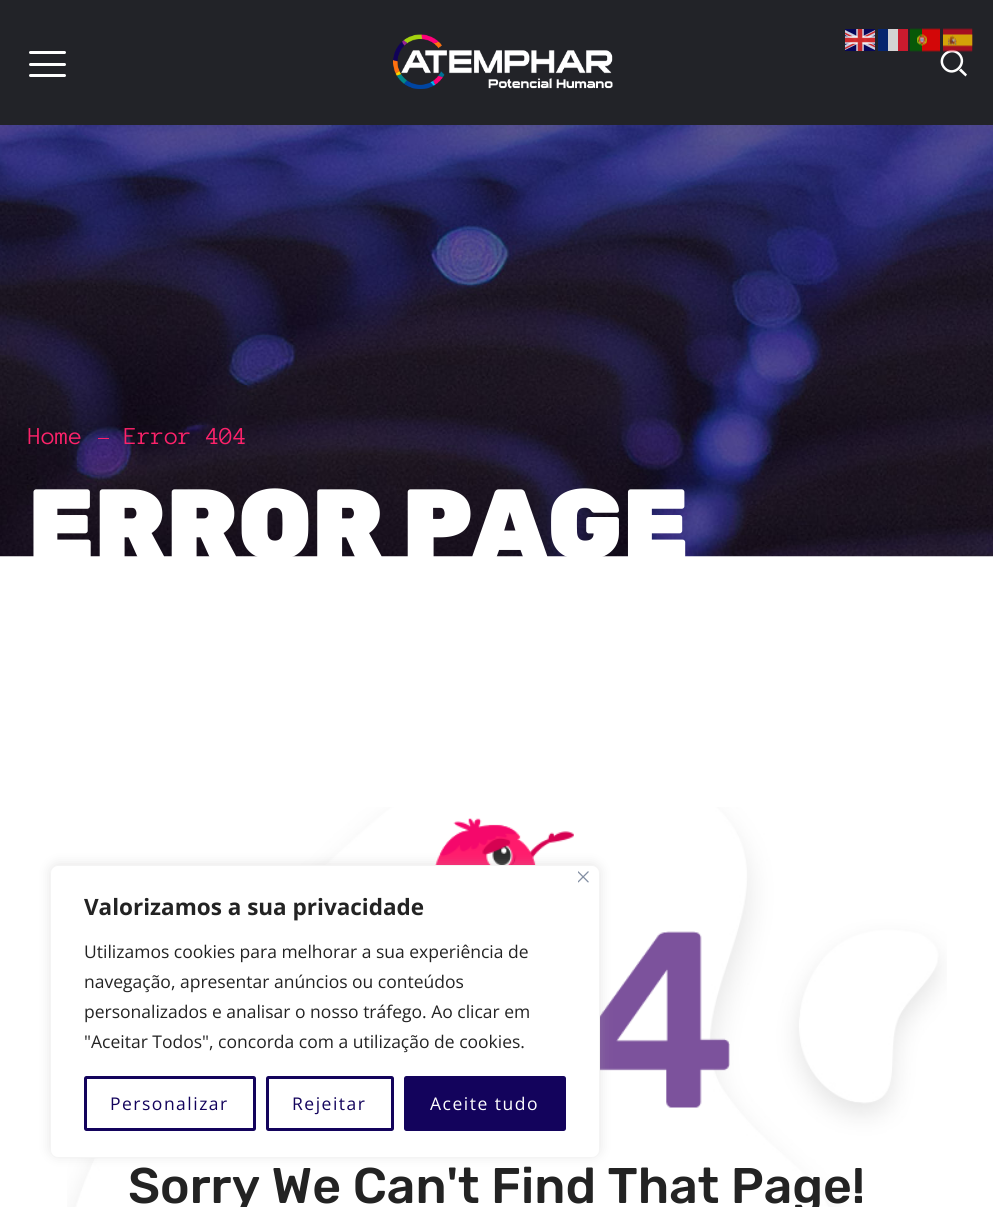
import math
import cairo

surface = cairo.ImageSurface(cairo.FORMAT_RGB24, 993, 1207)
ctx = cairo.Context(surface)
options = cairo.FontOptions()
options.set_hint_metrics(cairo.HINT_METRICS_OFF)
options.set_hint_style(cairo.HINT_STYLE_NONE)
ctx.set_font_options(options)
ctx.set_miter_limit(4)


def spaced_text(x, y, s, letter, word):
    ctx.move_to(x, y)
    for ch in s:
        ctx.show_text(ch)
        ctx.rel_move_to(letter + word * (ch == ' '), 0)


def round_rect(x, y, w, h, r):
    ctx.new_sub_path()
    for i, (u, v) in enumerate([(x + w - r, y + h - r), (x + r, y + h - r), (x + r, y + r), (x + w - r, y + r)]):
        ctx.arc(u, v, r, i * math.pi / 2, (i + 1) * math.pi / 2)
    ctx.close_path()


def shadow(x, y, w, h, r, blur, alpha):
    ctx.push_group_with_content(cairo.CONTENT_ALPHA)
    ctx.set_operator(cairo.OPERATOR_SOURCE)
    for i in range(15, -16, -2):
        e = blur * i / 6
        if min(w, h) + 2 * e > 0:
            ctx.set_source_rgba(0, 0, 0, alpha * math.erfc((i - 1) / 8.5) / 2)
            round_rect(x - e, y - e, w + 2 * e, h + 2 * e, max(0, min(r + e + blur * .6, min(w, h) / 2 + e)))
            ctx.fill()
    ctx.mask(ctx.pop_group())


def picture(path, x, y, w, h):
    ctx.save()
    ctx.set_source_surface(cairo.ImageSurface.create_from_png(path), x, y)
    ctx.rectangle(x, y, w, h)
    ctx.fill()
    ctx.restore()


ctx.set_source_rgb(1, 1, 1)
ctx.paint()
ctx.set_source_rgb(0.133, 0.137, 0.157)
ctx.rectangle(0, 0, 993, 125)
ctx.fill()
ctx.set_source_rgb(1, 1, 1)
round_rect(29, 51, 37, 3, 1.5)
ctx.fill()
round_rect(29, 63, 37, 3, 1.5)
ctx.fill()
round_rect(29, 74, 37, 3, 1.5)
ctx.fill()
picture("img1.png", 393, 34, 220, 55)
ctx.new_path()
ctx.move_to(959, 54)
ctx.curve_to(968, 63.5, 954, 77.5, 945, 68.5)
ctx.curve_to(935.5, 59, 949.5, 45, 959, 54)
ctx.close_path()
ctx.set_line_width(2.5)
ctx.stroke()
ctx.new_path()
ctx.move_to(959, 70.5)
ctx.line_to(961, 68.5)
ctx.line_to(967, 74.5)
ctx.line_to(965.5, 76.5)
ctx.close_path()
ctx.fill()
picture("img2.png", 845, 29, 30, 22)
ctx.set_source_rgb(0.027, 0.145, 0.431)
ctx.rectangle(878, 29, 10, 22)
ctx.fill()
ctx.set_source_rgb(0.827, 0.827, 0.831)
ctx.rectangle(888, 29, 10, 22)
ctx.fill()
ctx.set_source_rgb(0.788, 0.102, 0.18)
ctx.rectangle(898, 29, 10, 22)
ctx.fill()
picture("img3.png", 910, 28, 30, 24)
picture("img4.png", 943, 28, 30, 24)
picture("img5.png", 0, 125, 993, 432)
ctx.select_font_face("Anonymous Pro")
ctx.set_font_size(25)
ctx.set_source_rgb(0.992, 0.133, 0.416)
ctx.move_to(28, 444)
ctx.show_text("Home")
ctx.rectangle(98, 438, 11, 1)
ctx.fill()
ctx.move_to(124, 444)
ctx.show_text("Error 404")
ctx.select_font_face("Rubik Black")
ctx.set_font_size(99.5)
ctx.set_source_rgb(1, 1, 1)
ctx.move_to(28, 559)
ctx.show_text("ERROR PAGE")
picture("img7.png", 67, 807, 880, 400)
picture("img8.png", 435, 818, 295, 290)
ctx.set_source_rgb(0.675, 0.671, 0.671)
shadow(50, 864, 550, 292, 8, 6, 0.3)
ctx.set_source_rgb(1, 1, 1)
round_rect(50.5, 865.5, 549, 292, 7.5)
ctx.fill_preserve()
ctx.set_source_rgb(0.957, 0.957, 0.957)
ctx.set_line_width(1)
ctx.stroke()
picture("img6.png", 578, 871, 11, 12)
ctx.select_font_face("Open Sans", cairo.FONT_SLANT_NORMAL, cairo.FONT_WEIGHT_BOLD)
ctx.set_font_size(22.5)
ctx.set_source_rgb(0.137, 0.137, 0.137)
ctx.move_to(84, 915)
ctx.show_text("Valorizamos a sua privacidade")
ctx.select_font_face("Open Sans")
ctx.set_font_size(17.5)
ctx.move_to(84, 958)
ctx.show_text("Utilizamos cookies para melhorar a sua experiência de")
ctx.move_to(84, 988)
ctx.show_text("navegação, apresentar anúncios ou conteúdos")
ctx.move_to(84, 1018)
ctx.show_text("personalizados e analisar o nosso tráfego. Ao clicar em")
ctx.move_to(84, 1048)
ctx.show_text("\"Aceitar Todos\", concorda com a utilização de cookies.")
round_rect(85.5, 1077.5, 169, 52, 1)
ctx.set_source_rgb(0.075, 0.012, 0.361)
ctx.set_line_width(3)
ctx.stroke()
spaced_text(110, 1110, "Personalizar", 1.5, 0)
round_rect(267.5, 1077.5, 125, 52, 1)
ctx.stroke()
spaced_text(292, 1110, "Rejeitar", 1.5, 0)
round_rect(405.5, 1077.5, 159, 52, 1)
ctx.fill_preserve()
ctx.stroke()
ctx.set_source_rgb(1, 1, 1)
spaced_text(430, 1110, "Aceite tudo", 1.5, 0)
ctx.select_font_face("Rubik Medium")
ctx.set_font_size(50)
ctx.set_source_rgb(0.137, 0.137, 0.137)
ctx.move_to(128, 1203)
ctx.show_text("Sorry We Can't Find That Page!")
surface.write_to_png("page.png")
